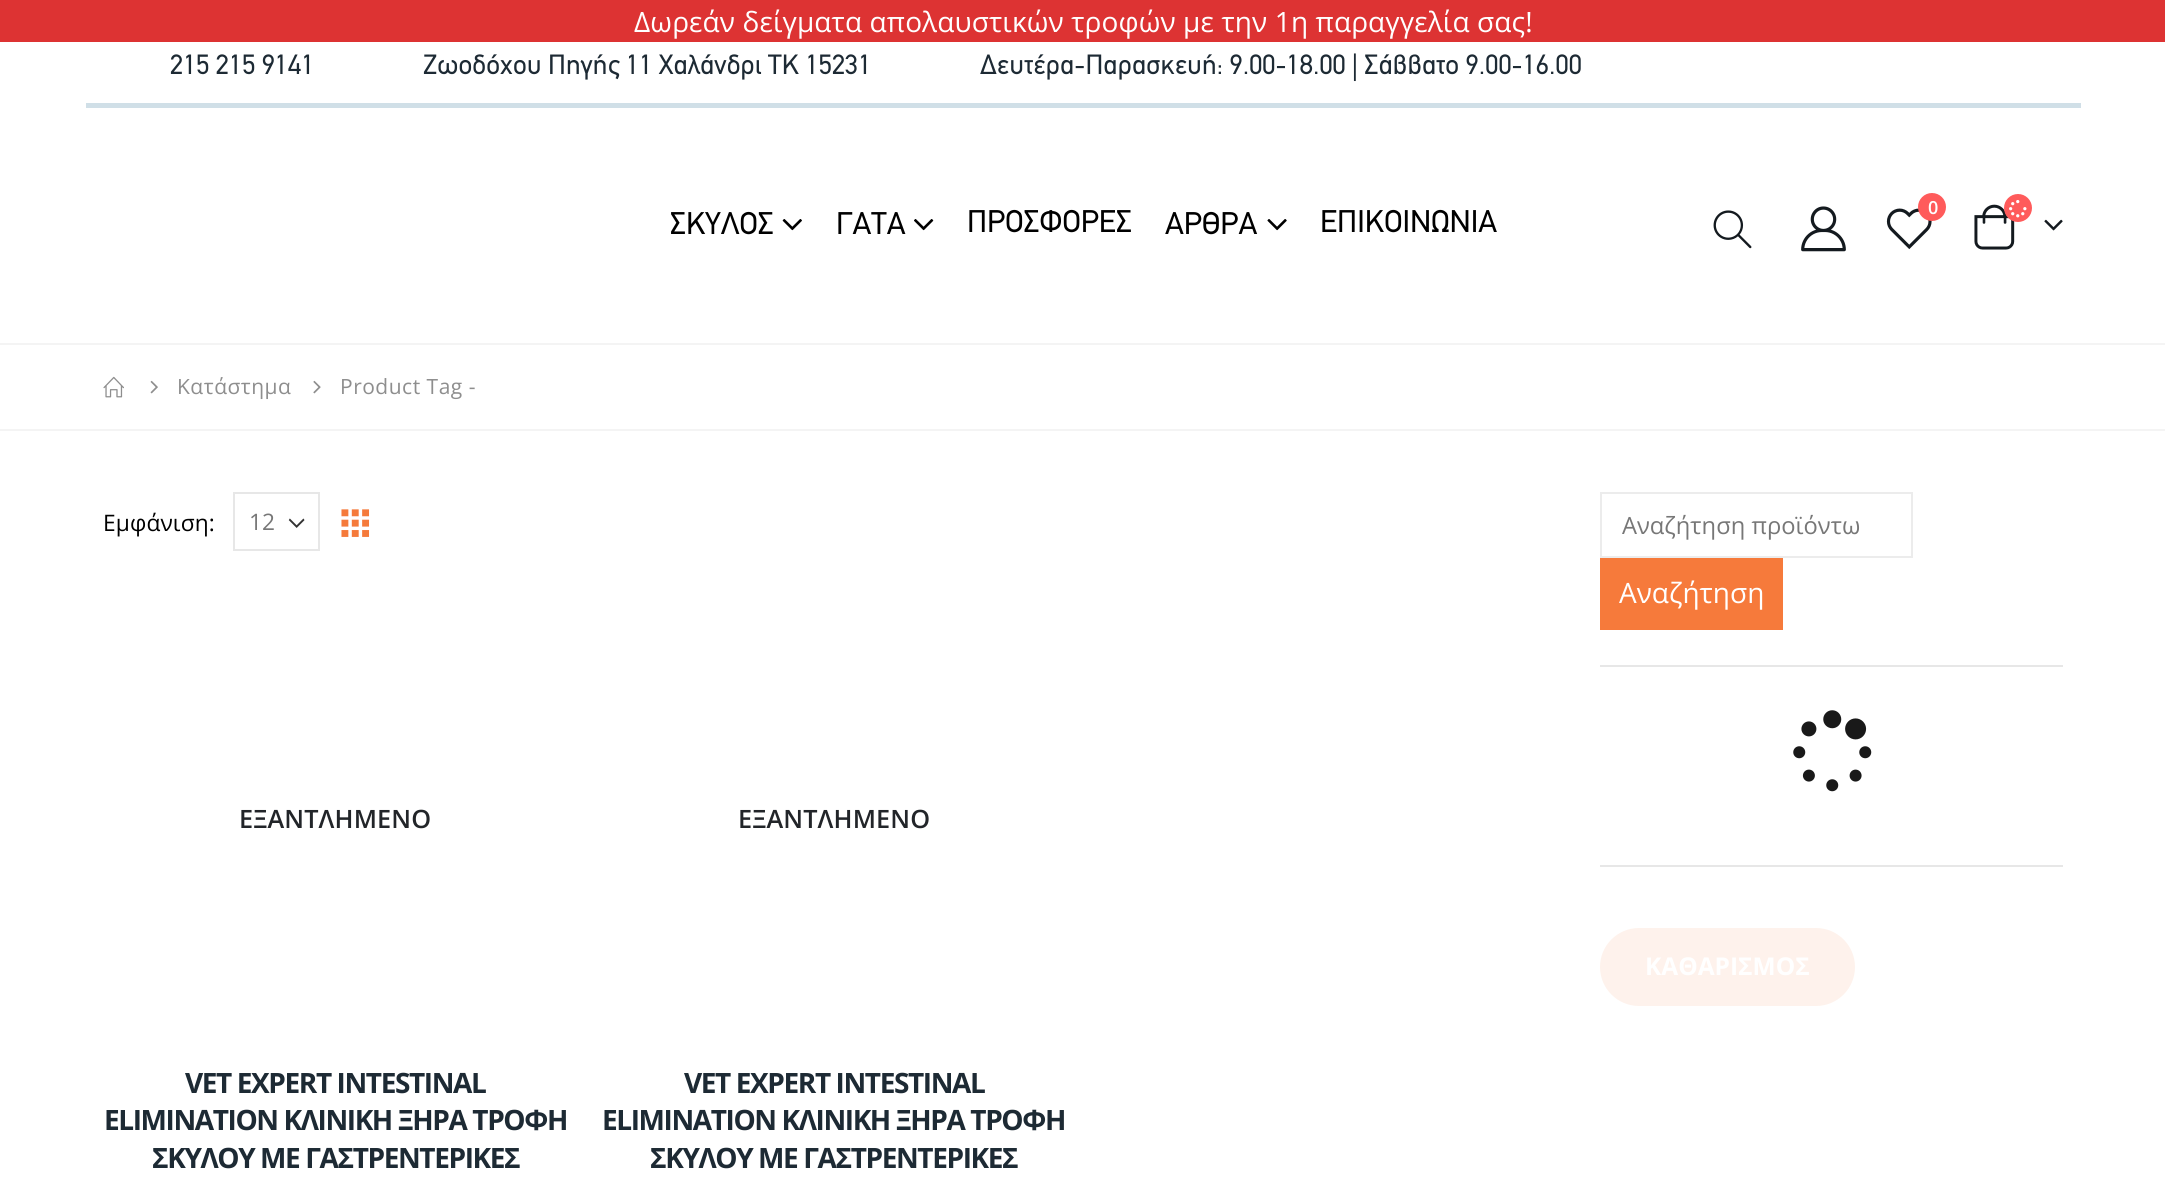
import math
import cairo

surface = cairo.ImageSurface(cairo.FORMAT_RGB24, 2165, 1184)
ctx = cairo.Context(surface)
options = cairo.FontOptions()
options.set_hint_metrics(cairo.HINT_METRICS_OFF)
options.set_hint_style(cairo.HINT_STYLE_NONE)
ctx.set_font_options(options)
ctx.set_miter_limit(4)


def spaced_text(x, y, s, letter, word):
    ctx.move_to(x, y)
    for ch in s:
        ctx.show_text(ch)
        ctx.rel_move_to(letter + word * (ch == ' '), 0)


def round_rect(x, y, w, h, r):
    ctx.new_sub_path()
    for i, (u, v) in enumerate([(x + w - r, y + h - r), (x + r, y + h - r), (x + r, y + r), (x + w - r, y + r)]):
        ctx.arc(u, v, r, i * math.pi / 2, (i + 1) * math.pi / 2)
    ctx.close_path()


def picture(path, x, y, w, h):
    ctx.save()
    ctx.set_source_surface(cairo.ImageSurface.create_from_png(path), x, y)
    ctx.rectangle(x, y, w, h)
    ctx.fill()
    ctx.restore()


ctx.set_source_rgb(1, 1, 1)
ctx.paint()
ctx.set_source_rgb(0.867, 0.2, 0.2)
ctx.rectangle(0, 0, 2165, 42)
ctx.fill()
ctx.select_font_face("Open Sans")
ctx.set_font_size(28)
ctx.set_source_rgb(1, 1, 1)
spaced_text(634, 32, "Δωρεάν δείγματα απολαυστικών τροφών με την 1η παραγγελία σας!", 0.12, 0)
ctx.set_source_rgb(0.816, 0.875, 0.906)
ctx.rectangle(86, 103, 1995, 5)
ctx.fill()
ctx.select_font_face("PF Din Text")
ctx.set_source_rgb(0.114, 0.165, 0.204)
spaced_text(170, 74, "215 215 9141", 0.12, 0)
spaced_text(423, 74, "Ζωοδόχου Πηγής 11 Χαλάνδρι ΤΚ 15231", 0.12, 0)
spaced_text(980, 74, "Δευτέρα-Παρασκευή: 9.00-18.00 | Σάββατο 9.00-16.00", 0.12, 0)
ctx.set_font_size(31.5)
ctx.set_source_rgb(0, 0, 0)
ctx.move_to(670, 234)
ctx.show_text("ΣΚΥΛΟΣ")
picture("img1.png", 782, 219, 20, 12)
ctx.move_to(836, 234)
ctx.show_text("ΓΑΤΑ")
picture("img2.png", 914, 219, 20, 12)
ctx.move_to(967, 232)
ctx.show_text("ΠΡΟΣΦΟΡΕΣ")
ctx.move_to(1165, 234)
ctx.show_text("ΑΡΘΡΑ")
picture("img3.png", 1267, 219, 20, 12)
ctx.move_to(1320, 232)
ctx.show_text("ΕΠΙΚΟΙΝΩΝΙΑ")
picture("img4.png", 1713, 210, 39, 39)
picture("img5.png", 1801, 206, 45, 46)
picture("img6.png", 1886, 208, 46, 42)
ctx.set_source_rgb(1, 0.357, 0.357)
ctx.arc(1932, 207, 14, 0, 2 * math.pi)
ctx.fill()
ctx.select_font_face("Open Sans SemiBold")
ctx.set_font_size(18)
ctx.set_source_rgb(1, 1, 1)
spaced_text(1928, 214, "0", 0.12, 0)
picture("img7.png", 1974, 204, 41, 46)
ctx.set_source_rgb(1, 0.357, 0.357)
ctx.arc(2018, 208, 14, 0, 2 * math.pi)
ctx.fill()
picture("img8.png", 2009, 200, 18, 18)
picture("img9.png", 2044, 219, 19, 12)
ctx.set_source_rgb(0.957, 0.957, 0.957)
ctx.rectangle(0, 343, 2165, 2)
ctx.fill()
ctx.rectangle(0, 429, 2165, 2)
ctx.fill()
picture("img10.png", 103, 376, 21, 22)
picture("img11.png", 150, 380, 8, 14)
ctx.select_font_face("Open Sans")
ctx.set_font_size(21)
ctx.set_source_rgb(0.557, 0.557, 0.557)
spaced_text(177, 394, "Κατάστημα", 0.5, 0)
picture("img12.png", 313, 380, 8, 14)
spaced_text(340, 394, "Product Tag -", 0.5, 0)
ctx.set_font_size(22.75)
ctx.set_source_rgb(0, 0, 0)
spaced_text(103, 531, "Εμφάνιση:", 0.12, 0)
picture("img13.png", 288, 518, 17, 10)
ctx.rectangle(234, 493, 85, 57)
ctx.set_source_rgb(0.906, 0.906, 0.906)
ctx.stroke()
ctx.set_source_rgb(0.467, 0.467, 0.467)
ctx.move_to(249, 530)
ctx.show_text("12")
picture("img14.png", 341, 509, 29, 28)
ctx.select_font_face("Open Sans SemiBold")
ctx.set_font_size(25.25)
ctx.set_source_rgb(0.133, 0.145, 0.161)
spaced_text(239, 828, "ΕΞΑΝΤΛΗΜΕΝΟ", 0.12, 0)
ctx.select_font_face("Open Sans", cairo.FONT_SLANT_NORMAL, cairo.FONT_WEIGHT_BOLD)
ctx.set_font_size(28)
ctx.set_source_rgb(0.114, 0.165, 0.204)
spaced_text(185, 1093, "VET EXPERT INTESTINAL", -1.4, 0)
spaced_text(104, 1130, "ELIMINATION ΚΛΙΝΙΚΗ ΞΗΡΑ ΤΡΟΦΗ", -1.4, 0)
spaced_text(152, 1168, "ΣΚΥΛΟΥ ΜΕ ΓΑΣΤΡΕΝΤΕΡΙΚΕΣ", -1.4, 0)
ctx.select_font_face("Open Sans SemiBold")
ctx.set_font_size(25.25)
ctx.set_source_rgb(0.133, 0.145, 0.161)
spaced_text(738, 828, "ΕΞΑΝΤΛΗΜΕΝΟ", 0.12, 0)
ctx.select_font_face("Open Sans", cairo.FONT_SLANT_NORMAL, cairo.FONT_WEIGHT_BOLD)
ctx.set_font_size(28)
ctx.set_source_rgb(0.114, 0.165, 0.204)
spaced_text(684, 1093, "VET EXPERT INTESTINAL", -1.4, 0)
spaced_text(602, 1130, "ELIMINATION ΚΛΙΝΙΚΗ ΞΗΡΑ ΤΡΟΦΗ", -1.4, 0)
spaced_text(650, 1168, "ΣΚΥΛΟΥ ΜΕ ΓΑΣΤΡΕΝΤΕΡΙΚΕΣ", -1.4, 0)
ctx.set_source_rgb(0.906, 0.906, 0.906)
ctx.rectangle(1600, 665, 463, 2)
ctx.fill()
ctx.rectangle(1601, 493, 311, 64)
ctx.set_source_rgb(0.922, 0.922, 0.922)
ctx.stroke()
ctx.select_font_face("Open Sans")
ctx.set_font_size(23.75)
ctx.set_source_rgb(0.467, 0.467, 0.467)
ctx.move_to(1622, 534)
ctx.show_text("Αναζήτηση προϊόντω")
ctx.set_source_rgb(0.961, 0.478, 0.231)
ctx.rectangle(1600, 558, 183, 72)
ctx.fill()
ctx.set_font_size(28)
ctx.set_source_rgb(1, 1, 1)
ctx.move_to(1619, 603)
ctx.show_text("Αναζήτηση")
ctx.set_source_rgb(0.906, 0.906, 0.906)
ctx.rectangle(1600, 865, 463, 2)
ctx.fill()
picture("img15.png", 1793, 710, 79, 82)
ctx.set_source_rgb(0.996, 0.949, 0.922)
round_rect(1600, 928, 255, 78, 39)
ctx.fill()
ctx.select_font_face("Open Sans", cairo.FONT_SLANT_NORMAL, cairo.FONT_WEIGHT_BOLD)
ctx.set_font_size(24.5)
ctx.set_source_rgb(1, 1, 1)
ctx.move_to(1645, 975)
ctx.show_text("ΚΑΘΑΡΙΣΜΟΣ")
surface.write_to_png("page.png")
